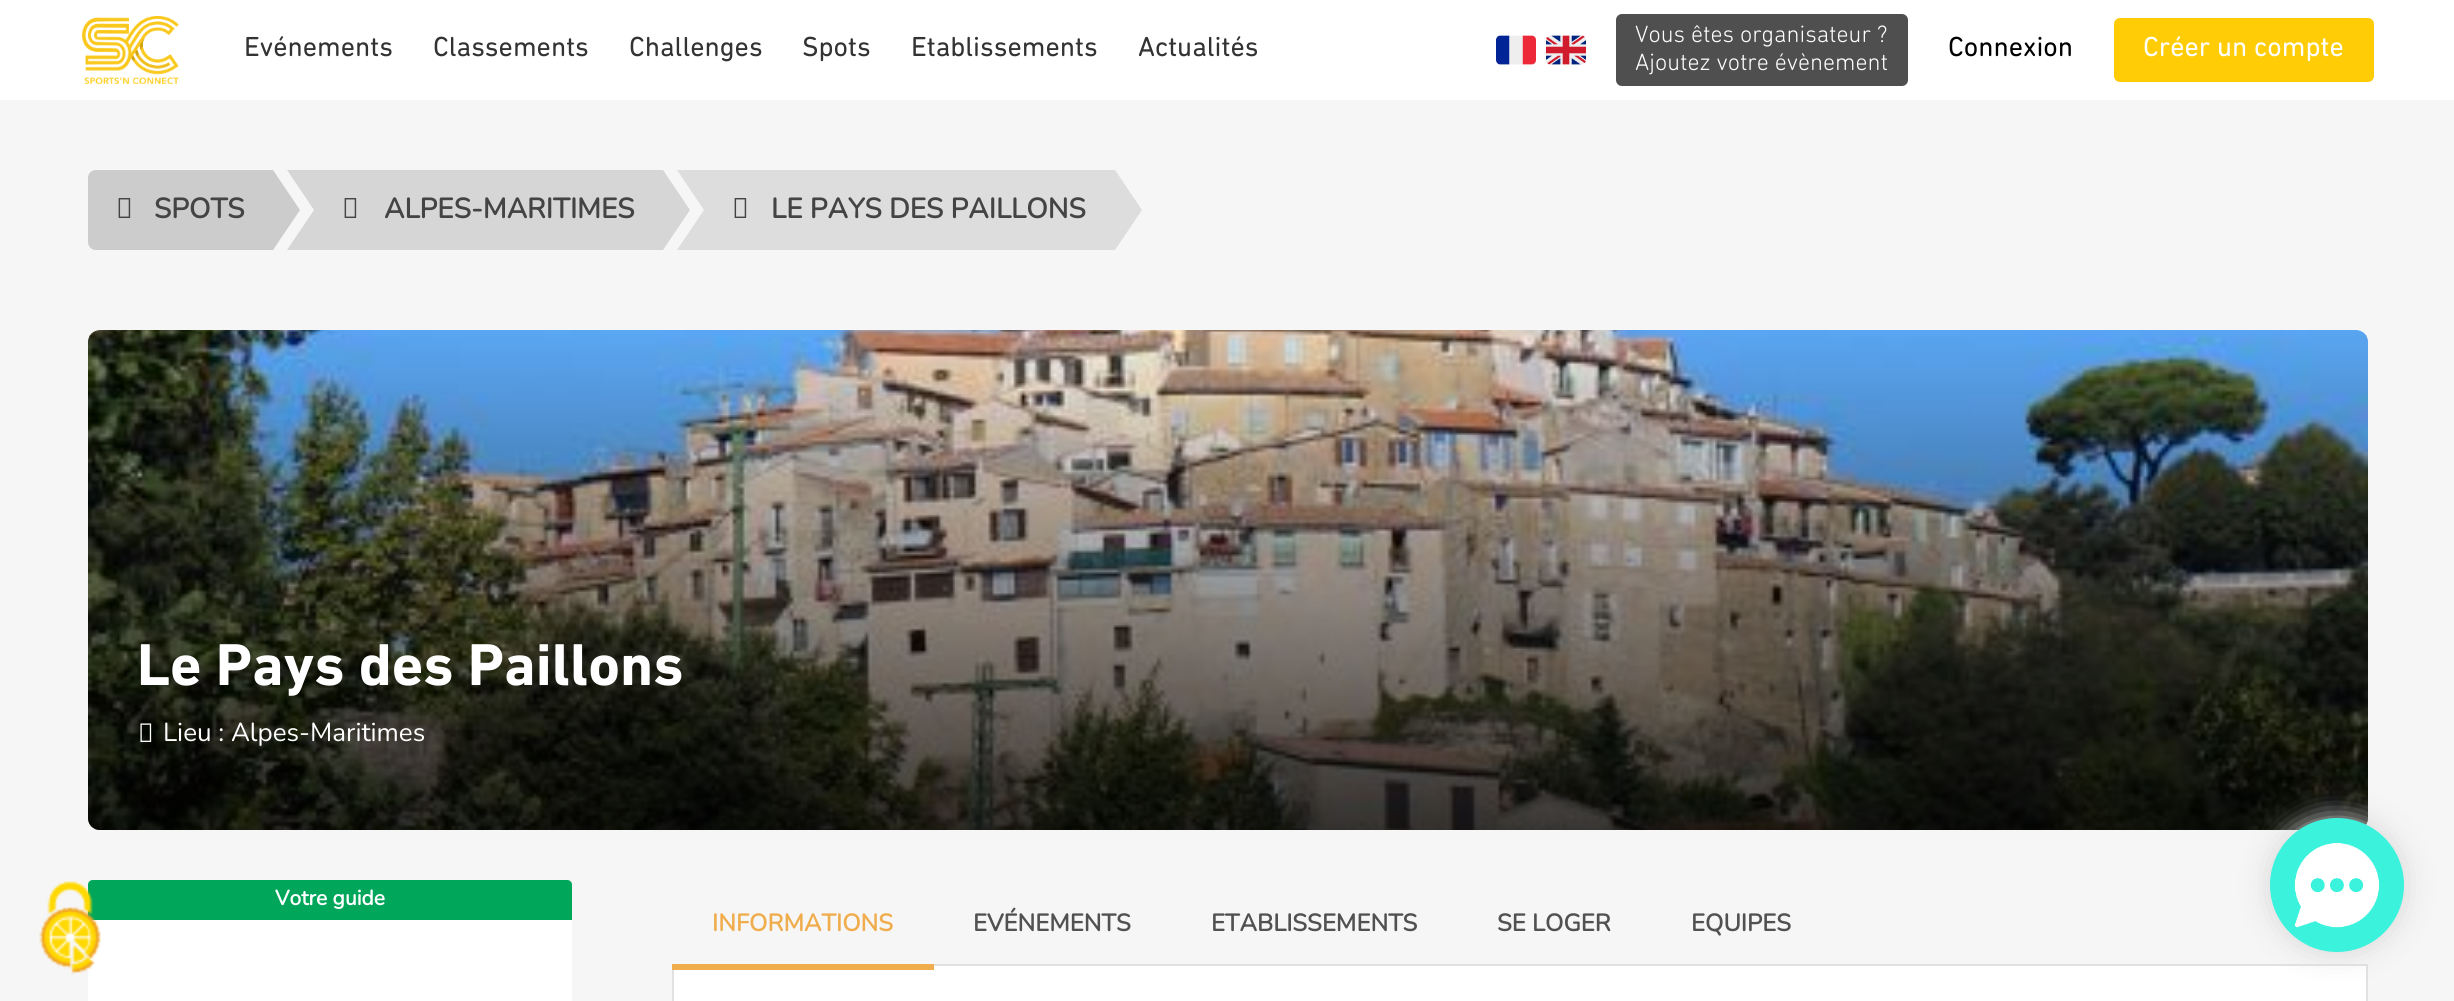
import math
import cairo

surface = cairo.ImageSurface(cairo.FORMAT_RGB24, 2454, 1001)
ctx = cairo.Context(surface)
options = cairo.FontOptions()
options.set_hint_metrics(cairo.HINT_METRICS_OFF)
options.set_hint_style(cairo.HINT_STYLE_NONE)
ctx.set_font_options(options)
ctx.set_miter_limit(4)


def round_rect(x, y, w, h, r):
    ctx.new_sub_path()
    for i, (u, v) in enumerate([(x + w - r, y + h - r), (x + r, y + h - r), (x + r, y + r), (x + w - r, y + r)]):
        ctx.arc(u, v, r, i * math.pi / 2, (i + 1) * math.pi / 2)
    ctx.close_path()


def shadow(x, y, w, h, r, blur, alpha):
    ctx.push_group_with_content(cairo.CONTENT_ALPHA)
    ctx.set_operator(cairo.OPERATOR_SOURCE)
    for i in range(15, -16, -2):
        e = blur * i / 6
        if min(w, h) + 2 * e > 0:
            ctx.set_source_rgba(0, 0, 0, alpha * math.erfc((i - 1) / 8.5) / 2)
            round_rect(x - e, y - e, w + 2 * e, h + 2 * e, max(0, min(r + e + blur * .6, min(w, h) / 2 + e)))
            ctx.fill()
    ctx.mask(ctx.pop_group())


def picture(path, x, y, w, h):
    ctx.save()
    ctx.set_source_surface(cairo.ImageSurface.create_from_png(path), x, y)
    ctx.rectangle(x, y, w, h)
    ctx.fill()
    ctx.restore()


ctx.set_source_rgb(1, 1, 1)
ctx.paint()
picture("img1.png", 81, 16, 98, 68)
ctx.select_font_face("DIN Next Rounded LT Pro")
ctx.set_font_size(28)
ctx.set_source_rgb(0.2, 0.2, 0.2)
ctx.move_to(244, 56)
ctx.show_text("Evénements")
ctx.move_to(433, 56)
ctx.show_text("Classements")
ctx.move_to(629, 56)
ctx.show_text("Challenges")
ctx.move_to(802, 56)
ctx.show_text("Spots")
ctx.move_to(911, 56)
ctx.show_text("Etablissements")
ctx.move_to(1138, 56)
ctx.show_text("Actualités")
picture("img2.png", 1496, 35, 40, 30)
picture("img3.png", 1546, 35, 40, 30)
ctx.set_source_rgb(0.31, 0.31, 0.31)
round_rect(1616, 14, 292, 72, 6)
ctx.fill()
ctx.select_font_face("DIN Next Rounded LT Pro Light")
ctx.set_font_size(24)
ctx.set_source_rgb(1, 1, 1)
ctx.move_to(1635, 42)
ctx.show_text("Vous êtes organisateur ?")
ctx.move_to(1635, 70)
ctx.show_text("Ajoutez votre évènement")
ctx.select_font_face("DIN Next Rounded LT Pro")
ctx.set_font_size(28)
ctx.set_source_rgb(0, 0, 0)
ctx.move_to(1948, 56)
ctx.show_text("Connexion")
ctx.set_source_rgb(1, 0.8, 0.024)
round_rect(2114, 18, 260, 64, 6)
ctx.fill()
ctx.set_source_rgb(1, 1, 1)
ctx.move_to(2143, 56)
ctx.show_text("Créer un compte")
ctx.set_source_rgb(0.961, 0.961, 0.961)
ctx.rectangle(0, 100, 2454, 901)
ctx.fill()
ctx.set_source_rgb(1, 1, 1)
round_rect(88, 880, 484, 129, 8)
ctx.fill()
ctx.set_source_rgb(0, 0.651, 0.353)
ctx.new_path()
ctx.move_to(93, 880)
ctx.line_to(567, 880)
ctx.curve_to(570, 880, 572, 882, 572, 885)
ctx.line_to(572, 920)
ctx.line_to(88, 920)
ctx.line_to(88, 885)
ctx.curve_to(88, 882, 90, 880, 93, 880)
ctx.close_path()
ctx.fill()
picture("img4.png", 39, 881, 62, 94)
ctx.set_source_rgb(0.8, 0.8, 0.8)
ctx.new_path()
ctx.move_to(96, 170)
ctx.line_to(272, 170)
ctx.line_to(272, 250)
ctx.line_to(96, 250)
ctx.curve_to(91.5, 250, 88, 246.5, 88, 242)
ctx.line_to(88, 178)
ctx.curve_to(88, 173.5, 91.5, 170, 96, 170)
ctx.close_path()
ctx.fill()
picture("img5.png", 118, 198, 13, 20)
ctx.select_font_face("Nunito", cairo.FONT_SLANT_NORMAL, cairo.FONT_WEIGHT_BOLD)
ctx.set_source_rgb(0.267, 0.267, 0.267)
ctx.move_to(154, 218)
ctx.show_text("SPOTS")
ctx.set_source_rgb(0.8, 0.8, 0.8)
ctx.new_path()
ctx.move_to(273, 170)
ctx.line_to(300, 210)
ctx.line_to(273, 250)
ctx.line_to(272, 250)
ctx.line_to(272, 170)
ctx.close_path()
ctx.fill()
ctx.set_source_rgb(0.839, 0.839, 0.839)
ctx.rectangle(314, 170, 348, 80)
ctx.fill()
ctx.new_path()
ctx.move_to(314, 170)
ctx.line_to(314, 210)
ctx.line_to(287, 170)
ctx.close_path()
ctx.fill()
ctx.new_path()
ctx.move_to(314, 250)
ctx.line_to(287, 250)
ctx.line_to(314, 210)
ctx.close_path()
ctx.fill()
picture("img6.png", 344, 198, 13, 20)
ctx.set_source_rgb(0.267, 0.267, 0.267)
ctx.move_to(384, 218)
ctx.show_text("ALPES-MARITIMES")
ctx.set_source_rgb(0.839, 0.839, 0.839)
ctx.new_path()
ctx.move_to(663, 170)
ctx.line_to(690, 210)
ctx.line_to(663, 250)
ctx.line_to(662, 250)
ctx.line_to(662, 170)
ctx.close_path()
ctx.fill()
ctx.set_source_rgb(0.867, 0.867, 0.867)
ctx.rectangle(704, 170, 410, 80)
ctx.fill()
ctx.new_path()
ctx.move_to(704, 170)
ctx.line_to(704, 210)
ctx.line_to(677, 170)
ctx.close_path()
ctx.fill()
ctx.new_path()
ctx.move_to(704, 250)
ctx.line_to(677, 250)
ctx.line_to(704, 210)
ctx.close_path()
ctx.fill()
picture("img7.png", 734, 198, 13, 20)
ctx.set_source_rgb(0.267, 0.267, 0.267)
ctx.move_to(771, 218)
ctx.show_text("LE PAYS DES PAILLONS")
ctx.set_source_rgb(0.867, 0.867, 0.867)
ctx.new_path()
ctx.move_to(1115, 170)
ctx.line_to(1142, 210)
ctx.line_to(1115, 250)
ctx.line_to(1114, 250)
ctx.line_to(1114, 170)
ctx.close_path()
ctx.fill()
picture("img8.png", 88, 330, 2280, 500)
gradient = cairo.LinearGradient(1228, 330, 1228, 830)
gradient.add_color_stop_rgba(0, 0, 0, 0, 0)
gradient.add_color_stop_rgba(1, 0, 0, 0, 0.75)
ctx.set_source(gradient)
round_rect(88, 330, 2280, 500, 12)
ctx.fill()
ctx.select_font_face("DIN Next", cairo.FONT_SLANT_NORMAL, cairo.FONT_WEIGHT_BOLD)
ctx.set_font_size(60)
ctx.set_source_rgb(1, 1, 1)
ctx.move_to(137, 685)
ctx.show_text("Le Pays des Paillons")
picture("img9.png", 140, 723, 12, 19)
ctx.select_font_face("Nunito ExtraLight")
ctx.set_font_size(26)
ctx.move_to(163, 741)
ctx.show_text("Lieu : Alpes-Maritimes")
ctx.select_font_face("Nunito", cairo.FONT_SLANT_NORMAL, cairo.FONT_WEIGHT_BOLD)
ctx.set_font_size(21)
ctx.move_to(275, 905)
ctx.show_text("Votre guide")
ctx.set_font_size(24)
ctx.set_source_rgb(0.941, 0.678, 0.306)
ctx.move_to(712, 931)
ctx.show_text("INFORMATIONS")
ctx.set_source_rgb(1, 1, 1)
ctx.rectangle(673, 965, 1694, 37)
ctx.fill_preserve()
ctx.set_source_rgb(0.882, 0.882, 0.882)
ctx.stroke()
ctx.set_source_rgb(0.941, 0.678, 0.306)
ctx.rectangle(672, 964, 262, 6)
ctx.fill()
ctx.set_source_rgb(0.318, 0.318, 0.318)
ctx.move_to(973, 931)
ctx.show_text("EVÉNEMENTS")
ctx.move_to(1211, 931)
ctx.show_text("ETABLISSEMENTS")
ctx.move_to(1497, 931)
ctx.show_text("SE LOGER")
ctx.move_to(1691, 931)
ctx.show_text("EQUIPES")
ctx.set_source_rgb(0.843, 0.843, 0.843)
shadow(2270, 818, 134, 134, 67, 15, 1)
ctx.set_source_rgb(0.231, 0.949, 0.863)
ctx.arc(2337, 885, 66, 0, 2 * math.pi)
ctx.fill_preserve()
ctx.stroke()
picture("img10.png", 2294, 842, 86, 86)
surface.write_to_png("page.png")
